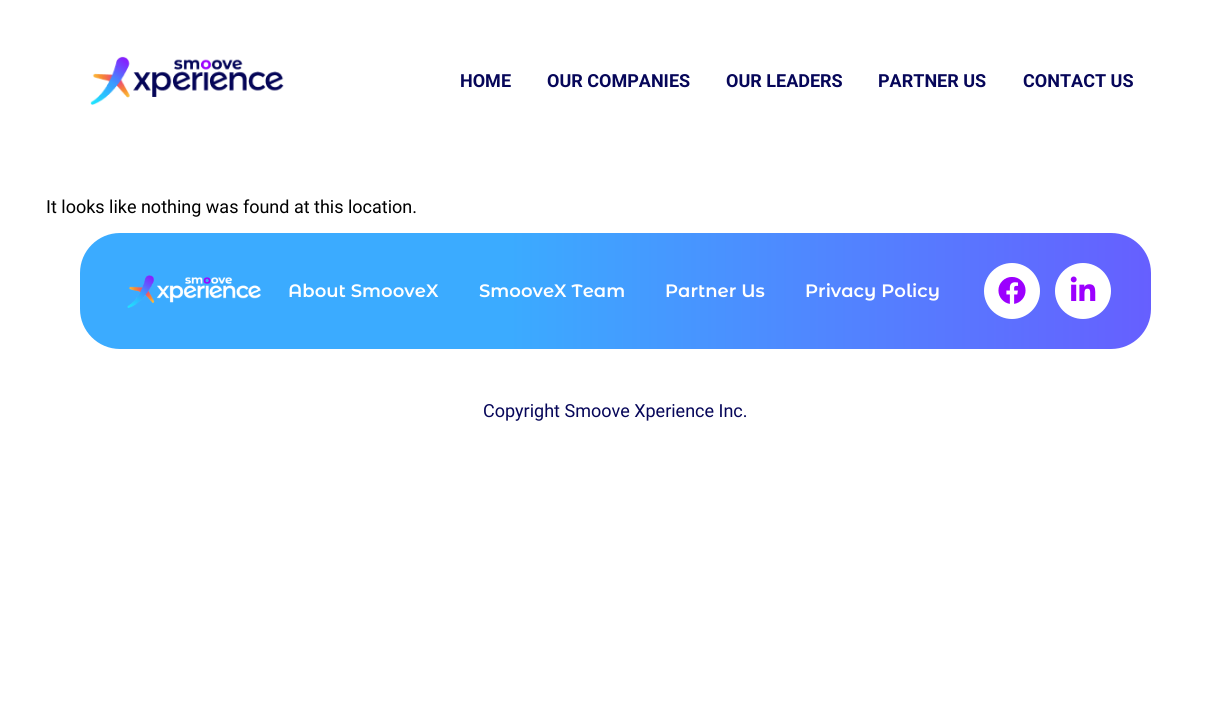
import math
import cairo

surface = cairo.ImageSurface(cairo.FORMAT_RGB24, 1231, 711)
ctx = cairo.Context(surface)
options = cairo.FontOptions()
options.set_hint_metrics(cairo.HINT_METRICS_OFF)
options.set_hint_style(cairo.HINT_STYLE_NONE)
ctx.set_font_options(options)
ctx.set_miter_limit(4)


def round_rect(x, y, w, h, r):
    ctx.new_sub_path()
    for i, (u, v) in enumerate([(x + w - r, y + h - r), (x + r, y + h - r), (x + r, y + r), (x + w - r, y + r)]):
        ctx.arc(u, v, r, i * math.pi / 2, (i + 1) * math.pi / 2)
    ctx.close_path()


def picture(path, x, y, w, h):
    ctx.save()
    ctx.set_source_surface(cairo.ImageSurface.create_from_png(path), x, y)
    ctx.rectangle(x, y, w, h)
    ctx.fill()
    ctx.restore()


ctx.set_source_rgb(1, 1, 1)
ctx.paint()
picture("img1.png", 90, 56, 194, 49)
ctx.select_font_face("Roboto", cairo.FONT_SLANT_NORMAL, cairo.FONT_WEIGHT_BOLD)
ctx.set_font_size(18)
ctx.set_source_rgb(0.024, 0.024, 0.349)
ctx.move_to(460, 87)
ctx.show_text("HOME")
ctx.move_to(547, 87)
ctx.show_text("OUR COMPANIES")
ctx.move_to(726, 87)
ctx.show_text("OUR LEADERS")
ctx.move_to(878, 87)
ctx.show_text("PARTNER US")
ctx.move_to(1023, 87)
ctx.show_text("CONTACT US")
ctx.select_font_face("Roboto")
ctx.set_source_rgb(0, 0, 0)
ctx.move_to(46, 213)
ctx.show_text("It looks like nothing was found at this location.")
gradient = cairo.LinearGradient(80, 291, 1151, 291)
gradient.add_color_stop_rgba(0.4, 0.231, 0.671, 1, 1)
gradient.add_color_stop_rgba(1, 0.4, 0.373, 1, 1)
ctx.set_source(gradient)
round_rect(80, 233, 1071, 116, 40)
ctx.fill()
picture("img2.png", 127, 275, 134, 33)
ctx.select_font_face("Montserrat Alternates SemiBold")
ctx.set_source_rgb(1, 1, 1)
ctx.move_to(288, 297)
ctx.show_text("About SmooveX")
ctx.move_to(479, 297)
ctx.show_text("SmooveX Team")
ctx.move_to(665, 297)
ctx.show_text("Partner Us")
ctx.move_to(805, 297)
ctx.show_text("Privacy Policy")
ctx.new_path()
ctx.arc(1012, 291, 28, 0, 2 * math.pi)
ctx.fill()
picture("img3.png", 998, 277, 28, 27)
ctx.arc(1083, 291, 28, 0, 2 * math.pi)
ctx.fill()
picture("img4.png", 1070, 276, 26, 25)
ctx.select_font_face("Roboto")
ctx.set_source_rgb(0.024, 0.024, 0.349)
ctx.move_to(483, 417)
ctx.show_text("Copyright Smoove Xperience Inc.")
surface.write_to_png("page.png")
